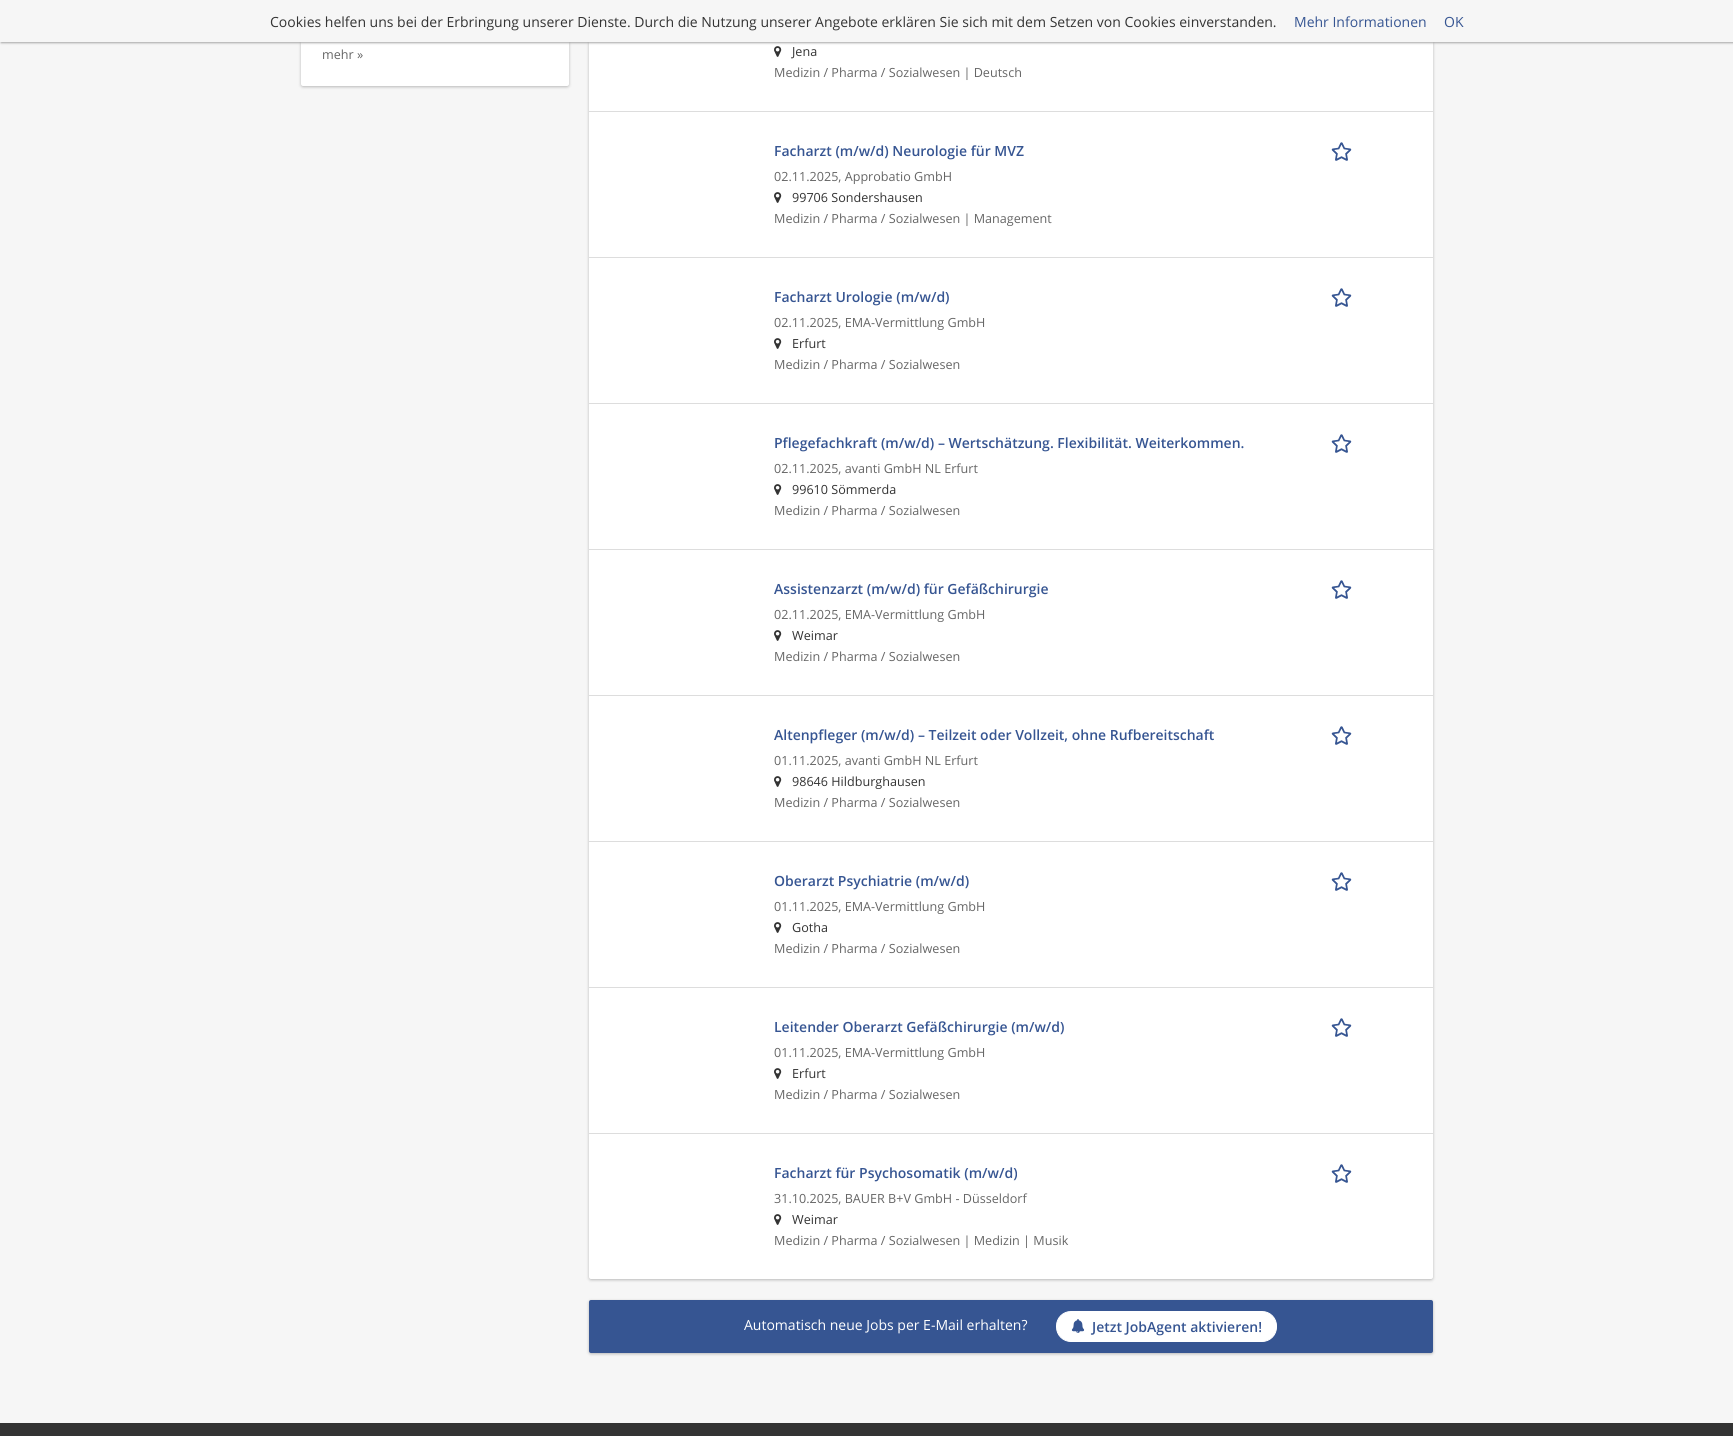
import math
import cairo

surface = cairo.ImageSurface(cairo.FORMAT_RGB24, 1733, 1436)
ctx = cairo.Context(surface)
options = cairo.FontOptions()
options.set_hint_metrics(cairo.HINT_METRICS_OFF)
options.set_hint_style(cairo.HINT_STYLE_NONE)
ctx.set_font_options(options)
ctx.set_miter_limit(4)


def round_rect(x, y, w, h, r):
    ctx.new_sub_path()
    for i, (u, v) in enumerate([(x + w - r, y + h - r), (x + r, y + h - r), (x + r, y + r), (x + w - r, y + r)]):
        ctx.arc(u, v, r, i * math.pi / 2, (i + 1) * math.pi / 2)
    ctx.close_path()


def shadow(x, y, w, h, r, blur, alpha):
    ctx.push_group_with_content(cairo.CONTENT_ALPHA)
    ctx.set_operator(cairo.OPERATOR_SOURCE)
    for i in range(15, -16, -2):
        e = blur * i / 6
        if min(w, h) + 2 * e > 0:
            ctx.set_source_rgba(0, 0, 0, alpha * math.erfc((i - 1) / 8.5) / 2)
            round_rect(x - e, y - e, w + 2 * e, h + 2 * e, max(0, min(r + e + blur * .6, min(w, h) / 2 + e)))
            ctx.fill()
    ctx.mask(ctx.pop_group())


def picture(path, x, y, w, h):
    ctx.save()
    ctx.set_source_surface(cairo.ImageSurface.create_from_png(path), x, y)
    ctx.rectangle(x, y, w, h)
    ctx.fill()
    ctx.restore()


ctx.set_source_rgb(0.961, 0.961, 0.961)
ctx.paint()
ctx.set_source_rgb(0, 0, 0)
shadow(301, -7, 268, 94, 2, 1.5, 0.25)
ctx.set_source_rgb(1, 1, 1)
round_rect(301, -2, 268, 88, 2)
ctx.fill()
ctx.set_source_rgb(0, 0, 0)
shadow(589, -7, 844, 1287, 2, 1.5, 0.25)
ctx.set_source_rgb(1, 1, 1)
round_rect(589, -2, 844, 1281, 2)
ctx.fill()
picture("img1.png", 774, 46, 8, 11)
ctx.set_source_rgb(0.659, 0.659, 0.659)
shadow(1, 1, 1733, 42, 0, 1, 1)
ctx.set_source_rgb(0.961, 0.961, 0.961)
ctx.rectangle(0, 0, 1733, 42)
ctx.fill()
ctx.select_font_face("Open Sans")
ctx.set_font_size(14)
ctx.set_source_rgb(0.2, 0.2, 0.2)
ctx.move_to(270, 27)
ctx.show_text("Cookies helfen uns bei der Erbringung unserer Dienste. Durch die Nutzung unserer Angebote erklären Sie sich mit dem Setzen von Cookies einverstanden.")
ctx.set_source_rgb(0.212, 0.333, 0.573)
ctx.move_to(1294, 27)
ctx.show_text("Mehr Informationen")
ctx.move_to(1444, 27)
ctx.show_text("OK")
ctx.set_font_size(12.6)
ctx.set_source_rgb(0.4, 0.4, 0.4)
ctx.move_to(322, 59)
ctx.show_text("mehr »")
ctx.set_source_rgb(0.2, 0.2, 0.2)
ctx.move_to(792, 56)
ctx.show_text("Jena")
ctx.set_source_rgb(0.4, 0.4, 0.4)
ctx.move_to(774, 77)
ctx.show_text("Medizin / Pharma / Sozialwesen | Deutsch")
ctx.set_source_rgb(0.867, 0.867, 0.867)
ctx.rectangle(589, 111, 844, 1)
ctx.fill()
ctx.select_font_face("Open Sans SemiBold")
ctx.set_font_size(14)
ctx.set_source_rgb(0.212, 0.333, 0.573)
ctx.move_to(774, 156)
ctx.show_text("Facharzt (m/w/d) Neurologie für MVZ")
ctx.select_font_face("Open Sans")
ctx.set_font_size(12.6)
ctx.set_source_rgb(0.4, 0.4, 0.4)
ctx.move_to(774, 181)
ctx.show_text("02.11.2025, Approbatio GmbH")
picture("img1.png", 774, 192, 8, 11)
ctx.set_source_rgb(0.2, 0.2, 0.2)
ctx.move_to(792, 202)
ctx.show_text("99706 Sondershausen")
ctx.set_source_rgb(0.4, 0.4, 0.4)
ctx.move_to(774, 223)
ctx.show_text("Medizin / Pharma / Sozialwesen | Management")
picture("img2.png", 1331, 142, 21, 19)
ctx.set_source_rgb(0.867, 0.867, 0.867)
ctx.rectangle(589, 257, 844, 1)
ctx.fill()
ctx.select_font_face("Open Sans SemiBold")
ctx.set_font_size(14)
ctx.set_source_rgb(0.212, 0.333, 0.573)
ctx.move_to(774, 302)
ctx.show_text("Facharzt Urologie (m/w/d)")
ctx.select_font_face("Open Sans")
ctx.set_font_size(12.6)
ctx.set_source_rgb(0.4, 0.4, 0.4)
ctx.move_to(774, 327)
ctx.show_text("02.11.2025, EMA-Vermittlung GmbH")
picture("img1.png", 774, 338, 8, 11)
ctx.set_source_rgb(0.2, 0.2, 0.2)
ctx.move_to(792, 348)
ctx.show_text("Erfurt")
ctx.set_source_rgb(0.4, 0.4, 0.4)
ctx.move_to(774, 369)
ctx.show_text("Medizin / Pharma / Sozialwesen")
picture("img2.png", 1331, 288, 21, 19)
ctx.set_source_rgb(0.867, 0.867, 0.867)
ctx.rectangle(589, 403, 844, 1)
ctx.fill()
ctx.select_font_face("Open Sans SemiBold")
ctx.set_font_size(14)
ctx.set_source_rgb(0.212, 0.333, 0.573)
ctx.move_to(774, 448)
ctx.show_text("Pflegefachkraft (m/w/d) – Wertschätzung. Flexibilität. Weiterkommen.")
ctx.select_font_face("Open Sans")
ctx.set_font_size(12.6)
ctx.set_source_rgb(0.4, 0.4, 0.4)
ctx.move_to(774, 473)
ctx.show_text("02.11.2025, avanti GmbH NL Erfurt")
picture("img1.png", 774, 484, 8, 11)
ctx.set_source_rgb(0.2, 0.2, 0.2)
ctx.move_to(792, 494)
ctx.show_text("99610 Sömmerda")
ctx.set_source_rgb(0.4, 0.4, 0.4)
ctx.move_to(774, 515)
ctx.show_text("Medizin / Pharma / Sozialwesen")
picture("img2.png", 1331, 434, 21, 19)
ctx.set_source_rgb(0.867, 0.867, 0.867)
ctx.rectangle(589, 549, 844, 1)
ctx.fill()
ctx.select_font_face("Open Sans SemiBold")
ctx.set_font_size(14)
ctx.set_source_rgb(0.212, 0.333, 0.573)
ctx.move_to(774, 594)
ctx.show_text("Assistenzarzt (m/w/d) für Gefäßchirurgie")
ctx.select_font_face("Open Sans")
ctx.set_font_size(12.6)
ctx.set_source_rgb(0.4, 0.4, 0.4)
ctx.move_to(774, 619)
ctx.show_text("02.11.2025, EMA-Vermittlung GmbH")
picture("img1.png", 774, 630, 8, 11)
ctx.set_source_rgb(0.2, 0.2, 0.2)
ctx.move_to(792, 640)
ctx.show_text("Weimar")
ctx.set_source_rgb(0.4, 0.4, 0.4)
ctx.move_to(774, 661)
ctx.show_text("Medizin / Pharma / Sozialwesen")
picture("img2.png", 1331, 580, 21, 19)
ctx.set_source_rgb(0.867, 0.867, 0.867)
ctx.rectangle(589, 695, 844, 1)
ctx.fill()
ctx.select_font_face("Open Sans SemiBold")
ctx.set_font_size(14)
ctx.set_source_rgb(0.212, 0.333, 0.573)
ctx.move_to(774, 740)
ctx.show_text("Altenpfleger (m/w/d) – Teilzeit oder Vollzeit, ohne Rufbereitschaft")
ctx.select_font_face("Open Sans")
ctx.set_font_size(12.6)
ctx.set_source_rgb(0.4, 0.4, 0.4)
ctx.move_to(774, 765)
ctx.show_text("01.11.2025, avanti GmbH NL Erfurt")
picture("img1.png", 774, 776, 8, 11)
ctx.set_source_rgb(0.2, 0.2, 0.2)
ctx.move_to(792, 786)
ctx.show_text("98646 Hildburghausen")
ctx.set_source_rgb(0.4, 0.4, 0.4)
ctx.move_to(774, 807)
ctx.show_text("Medizin / Pharma / Sozialwesen")
picture("img3.png", 1331, 726, 21, 19)
ctx.set_source_rgb(0.867, 0.867, 0.867)
ctx.rectangle(589, 841, 844, 1)
ctx.fill()
ctx.select_font_face("Open Sans SemiBold")
ctx.set_font_size(14)
ctx.set_source_rgb(0.212, 0.333, 0.573)
ctx.move_to(774, 886)
ctx.show_text("Oberarzt Psychiatrie (m/w/d)")
ctx.select_font_face("Open Sans")
ctx.set_font_size(12.6)
ctx.set_source_rgb(0.4, 0.4, 0.4)
ctx.move_to(774, 911)
ctx.show_text("01.11.2025, EMA-Vermittlung GmbH")
picture("img1.png", 774, 922, 8, 11)
ctx.set_source_rgb(0.2, 0.2, 0.2)
ctx.move_to(792, 932)
ctx.show_text("Gotha")
ctx.set_source_rgb(0.4, 0.4, 0.4)
ctx.move_to(774, 953)
ctx.show_text("Medizin / Pharma / Sozialwesen")
picture("img2.png", 1331, 872, 21, 19)
ctx.set_source_rgb(0.867, 0.867, 0.867)
ctx.rectangle(589, 987, 844, 1)
ctx.fill()
ctx.select_font_face("Open Sans SemiBold")
ctx.set_font_size(14)
ctx.set_source_rgb(0.212, 0.333, 0.573)
ctx.move_to(774, 1032)
ctx.show_text("Leitender Oberarzt Gefäßchirurgie (m/w/d)")
ctx.select_font_face("Open Sans")
ctx.set_font_size(12.6)
ctx.set_source_rgb(0.4, 0.4, 0.4)
ctx.move_to(774, 1057)
ctx.show_text("01.11.2025, EMA-Vermittlung GmbH")
picture("img1.png", 774, 1068, 8, 11)
ctx.set_source_rgb(0.2, 0.2, 0.2)
ctx.move_to(792, 1078)
ctx.show_text("Erfurt")
ctx.set_source_rgb(0.4, 0.4, 0.4)
ctx.move_to(774, 1099)
ctx.show_text("Medizin / Pharma / Sozialwesen")
picture("img2.png", 1331, 1018, 21, 19)
ctx.set_source_rgb(0.867, 0.867, 0.867)
ctx.rectangle(589, 1133, 844, 1)
ctx.fill()
ctx.select_font_face("Open Sans SemiBold")
ctx.set_font_size(14)
ctx.set_source_rgb(0.212, 0.333, 0.573)
ctx.move_to(774, 1178)
ctx.show_text("Facharzt für Psychosomatik (m/w/d)")
ctx.select_font_face("Open Sans")
ctx.set_font_size(12.6)
ctx.set_source_rgb(0.4, 0.4, 0.4)
ctx.move_to(774, 1203)
ctx.show_text("31.10.2025, BAUER B+V GmbH - Düsseldorf")
picture("img1.png", 774, 1214, 8, 11)
ctx.set_source_rgb(0.2, 0.2, 0.2)
ctx.move_to(792, 1224)
ctx.show_text("Weimar")
ctx.set_source_rgb(0.4, 0.4, 0.4)
ctx.move_to(774, 1245)
ctx.show_text("Medizin / Pharma / Sozialwesen | Medizin | Musik")
picture("img2.png", 1331, 1164, 21, 19)
ctx.set_source_rgb(0, 0, 0)
shadow(589, 1301, 844, 53, 2, 1.5, 0.25)
ctx.set_source_rgb(0.212, 0.333, 0.573)
round_rect(589, 1300, 844, 53, 2)
ctx.fill()
ctx.set_font_size(14)
ctx.set_source_rgb(1, 1, 1)
ctx.move_to(744, 1330)
ctx.show_text("Automatisch neue Jobs per E-Mail erhalten?")
round_rect(1056.5, 1311.5, 220, 30, 14.5)
ctx.fill_preserve()
ctx.set_line_width(1)
ctx.stroke()
picture("img4.png", 1071, 1319, 14, 14)
ctx.select_font_face("Open Sans SemiBold")
ctx.set_source_rgb(0.212, 0.333, 0.573)
ctx.move_to(1092, 1332)
ctx.show_text("Jetzt JobAgent aktivieren!")
ctx.set_source_rgb(0.2, 0.2, 0.2)
ctx.rectangle(0, 1423, 1733, 13)
ctx.fill()
surface.write_to_png("page.png")
